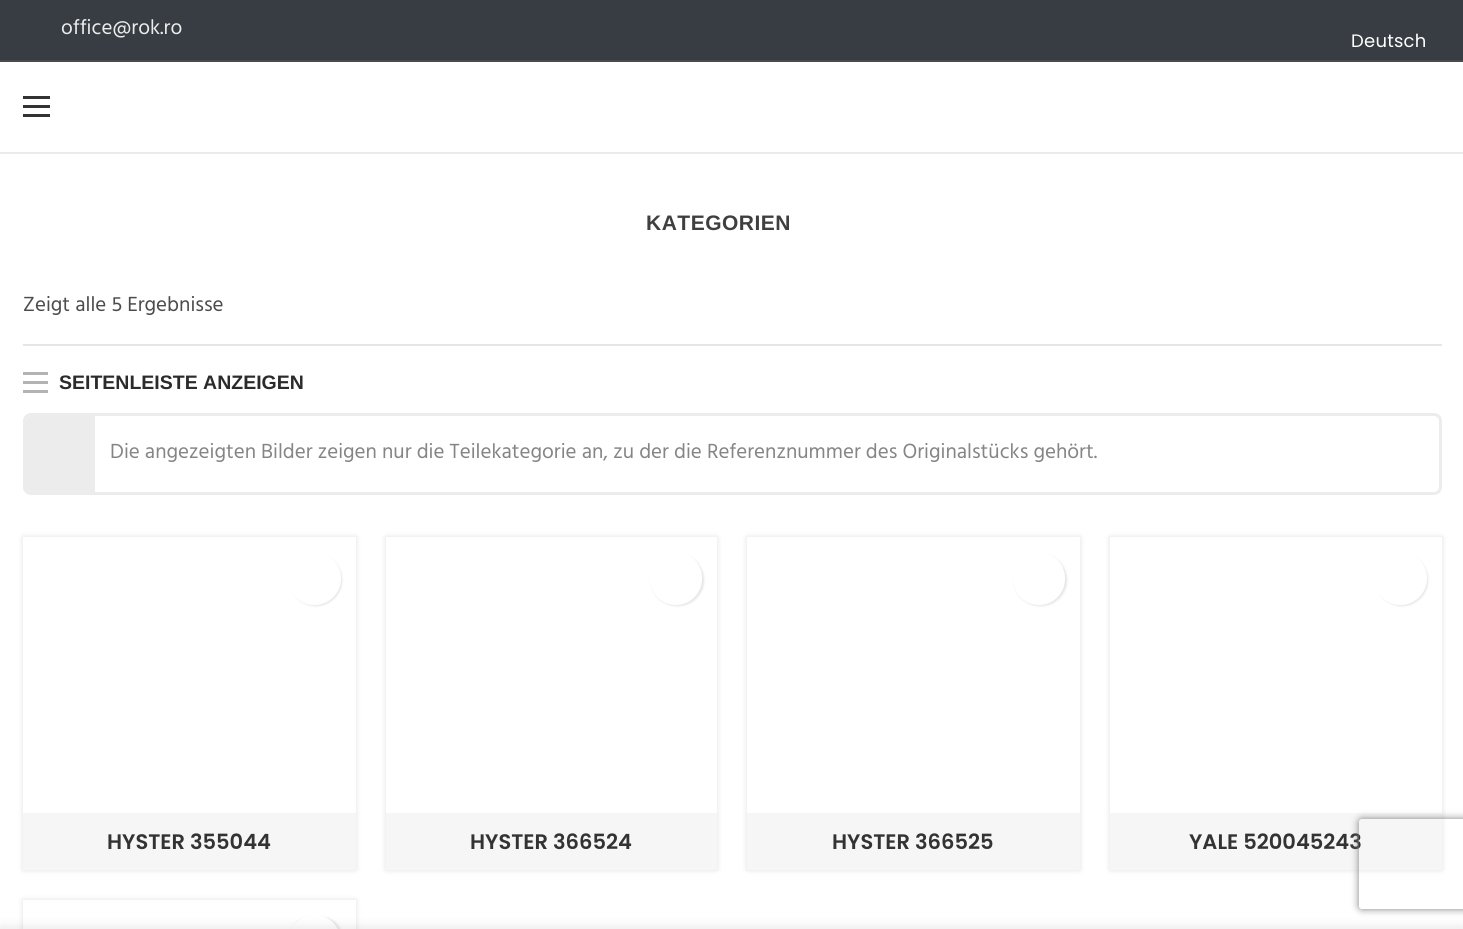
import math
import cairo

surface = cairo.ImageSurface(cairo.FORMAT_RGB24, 1463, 929)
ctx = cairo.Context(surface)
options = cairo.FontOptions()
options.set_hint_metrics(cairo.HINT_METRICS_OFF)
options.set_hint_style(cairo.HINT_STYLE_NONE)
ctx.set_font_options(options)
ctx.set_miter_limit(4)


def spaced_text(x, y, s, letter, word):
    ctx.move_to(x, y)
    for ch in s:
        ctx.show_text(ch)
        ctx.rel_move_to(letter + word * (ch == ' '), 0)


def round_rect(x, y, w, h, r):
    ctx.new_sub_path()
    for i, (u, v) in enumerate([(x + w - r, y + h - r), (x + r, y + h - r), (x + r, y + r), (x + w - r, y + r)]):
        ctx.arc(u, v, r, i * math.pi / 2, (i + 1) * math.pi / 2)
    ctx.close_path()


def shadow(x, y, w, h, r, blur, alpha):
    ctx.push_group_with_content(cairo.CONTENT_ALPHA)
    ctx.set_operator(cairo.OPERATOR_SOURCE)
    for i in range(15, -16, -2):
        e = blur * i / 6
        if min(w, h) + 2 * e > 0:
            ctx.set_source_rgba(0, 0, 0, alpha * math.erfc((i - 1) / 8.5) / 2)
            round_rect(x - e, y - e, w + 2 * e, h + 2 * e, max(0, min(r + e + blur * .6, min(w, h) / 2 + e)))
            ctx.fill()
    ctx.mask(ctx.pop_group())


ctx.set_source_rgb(1, 1, 1)
ctx.paint()
ctx.set_source_rgb(0.216, 0.239, 0.259)
ctx.rectangle(0, 0, 1463, 60)
ctx.fill()
ctx.set_source_rgb(0.275, 0.294, 0.302)
ctx.rectangle(0, 60, 1463, 2)
ctx.fill()
ctx.select_font_face("Hind")
ctx.set_font_size(21)
ctx.set_source_rgb(0.922, 0.925, 0.925)
ctx.move_to(61, 34)
ctx.show_text("office@rok.ro")
ctx.select_font_face("Poppins")
ctx.set_font_size(18)
ctx.set_source_rgb(1, 1, 1)
spaced_text(1351, 47, "Deutsch", 0.25, 0)
ctx.set_source_rgb(0.918, 0.918, 0.918)
ctx.rectangle(0, 152, 1463, 2)
ctx.fill()
ctx.set_source_rgb(0.2, 0.2, 0.2)
ctx.rectangle(23, 105, 27, 3)
ctx.fill()
ctx.rectangle(23, 96, 27, 3)
ctx.fill()
ctx.rectangle(23, 114, 27, 3)
ctx.fill()
ctx.select_font_face("Liberation Sans", cairo.FONT_SLANT_NORMAL, cairo.FONT_WEIGHT_BOLD)
ctx.set_font_size(21)
ctx.set_source_rgb(0.247, 0.247, 0.247)
spaced_text(646, 230, "KATEGORIEN", 0.5, 0)
ctx.set_source_rgb(0.902, 0.902, 0.902)
ctx.rectangle(23, 344, 1419, 2)
ctx.fill()
ctx.select_font_face("Hind")
ctx.set_source_rgb(0.298, 0.298, 0.298)
ctx.move_to(23, 311)
ctx.show_text("Zeigt alle 5 Ergebnisse")
ctx.set_source_rgb(0.702, 0.702, 0.702)
ctx.rectangle(23, 381, 25, 3)
ctx.fill()
ctx.rectangle(23, 372, 25, 3)
ctx.fill()
ctx.rectangle(23, 390, 25, 3)
ctx.fill()
ctx.select_font_face("Liberation Sans", cairo.FONT_SLANT_NORMAL, cairo.FONT_WEIGHT_BOLD)
ctx.set_font_size(19.5)
ctx.set_source_rgb(0.176, 0.165, 0.165)
ctx.move_to(59, 389)
ctx.show_text("SEITENLEISTE ANZEIGEN")
round_rect(24.5, 414.5, 1416, 79, 6.5)
ctx.set_source_rgb(0.922, 0.922, 0.922)
ctx.set_line_width(3)
ctx.stroke()
ctx.new_path()
ctx.move_to(31, 416)
ctx.line_to(95, 416)
ctx.line_to(95, 492)
ctx.line_to(31, 492)
ctx.curve_to(28, 492, 26, 490, 26, 487)
ctx.line_to(26, 421)
ctx.curve_to(26, 418, 28, 416, 31, 416)
ctx.close_path()
ctx.fill()
ctx.select_font_face("Hind")
ctx.set_font_size(21)
ctx.set_source_rgb(0.522, 0.522, 0.522)
ctx.move_to(110, 458)
ctx.show_text("Die angezeigten Bilder zeigen nur die Teilekategorie an, zu der die Referenznummer des Originalstücks gehört.")
ctx.save()
ctx.set_fill_rule(cairo.FILL_RULE_EVEN_ODD)
ctx.new_path()
ctx.move_to(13, 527)
ctx.line_to(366, 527)
ctx.line_to(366, 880)
ctx.line_to(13, 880)
ctx.close_path()
ctx.move_to(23, 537)
ctx.line_to(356, 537)
ctx.line_to(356, 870)
ctx.line_to(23, 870)
ctx.close_path()
ctx.clip()
ctx.set_source_rgb(0, 0, 0)
shadow(23, 537, 333, 333, 0, 3, 0.12)
ctx.restore()
ctx.set_source_rgb(0, 0, 0)
shadow(290, 554, 52, 52, 26, 1, 0.1)
ctx.set_source_rgb(1, 1, 1)
ctx.arc(314.5, 578.5, 26.5, 0, 2 * math.pi)
ctx.fill()
ctx.set_source_rgb(0.961, 0.961, 0.961)
ctx.rectangle(23, 813, 333, 57)
ctx.fill()
ctx.select_font_face("Poppins SemiBold")
ctx.set_source_rgb(0.2, 0.2, 0.2)
ctx.move_to(107, 849)
ctx.show_text("HYSTER 355044")
ctx.save()
ctx.set_fill_rule(cairo.FILL_RULE_EVEN_ODD)
ctx.new_path()
ctx.move_to(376, 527)
ctx.line_to(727, 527)
ctx.line_to(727, 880)
ctx.line_to(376, 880)
ctx.close_path()
ctx.move_to(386, 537)
ctx.line_to(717, 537)
ctx.line_to(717, 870)
ctx.line_to(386, 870)
ctx.close_path()
ctx.clip()
ctx.set_source_rgb(0, 0, 0)
shadow(386, 537, 331, 333, 0, 3, 0.12)
ctx.restore()
ctx.set_source_rgb(0, 0, 0)
shadow(651, 554, 53, 52, 26, 1, 0.1)
ctx.set_source_rgb(1, 1, 1)
round_rect(650, 552, 52, 53, 26)
ctx.fill()
ctx.set_source_rgb(0.961, 0.961, 0.961)
ctx.rectangle(386, 813, 331, 57)
ctx.fill()
ctx.set_source_rgb(0.2, 0.2, 0.2)
ctx.move_to(470, 849)
ctx.show_text("HYSTER 366524")
ctx.save()
ctx.set_fill_rule(cairo.FILL_RULE_EVEN_ODD)
ctx.new_path()
ctx.move_to(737, 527)
ctx.line_to(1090, 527)
ctx.line_to(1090, 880)
ctx.line_to(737, 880)
ctx.close_path()
ctx.move_to(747, 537)
ctx.line_to(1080, 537)
ctx.line_to(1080, 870)
ctx.line_to(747, 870)
ctx.close_path()
ctx.clip()
ctx.set_source_rgb(0, 0, 0)
shadow(747, 537, 333, 333, 0, 3, 0.12)
ctx.restore()
ctx.set_source_rgb(0, 0, 0)
shadow(1014, 554, 53, 52, 26, 1, 0.1)
ctx.set_source_rgb(1, 1, 1)
round_rect(1013, 552, 52, 53, 26)
ctx.fill()
ctx.set_source_rgb(0.961, 0.961, 0.961)
ctx.rectangle(747, 813, 333, 57)
ctx.fill()
ctx.set_source_rgb(0.2, 0.2, 0.2)
ctx.move_to(832, 849)
ctx.show_text("HYSTER 366525")
ctx.save()
ctx.set_fill_rule(cairo.FILL_RULE_EVEN_ODD)
ctx.new_path()
ctx.move_to(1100, 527)
ctx.line_to(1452, 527)
ctx.line_to(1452, 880)
ctx.line_to(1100, 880)
ctx.close_path()
ctx.move_to(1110, 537)
ctx.line_to(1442, 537)
ctx.line_to(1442, 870)
ctx.line_to(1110, 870)
ctx.close_path()
ctx.clip()
ctx.set_source_rgb(0, 0, 0)
shadow(1110, 537, 332, 333, 0, 3, 0.12)
ctx.restore()
ctx.set_source_rgb(0, 0, 0)
shadow(1376, 554, 52, 52, 26, 1, 0.1)
ctx.set_source_rgb(1, 1, 1)
ctx.arc(1400.5, 578.5, 26.5, 0, 2 * math.pi)
ctx.fill()
ctx.set_source_rgb(0.961, 0.961, 0.961)
ctx.rectangle(1110, 813, 332, 57)
ctx.fill()
ctx.set_source_rgb(0.2, 0.2, 0.2)
ctx.move_to(1189, 849)
ctx.show_text("YALE 520045243")
ctx.save()
ctx.set_fill_rule(cairo.FILL_RULE_EVEN_ODD)
ctx.new_path()
ctx.move_to(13, 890)
ctx.line_to(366, 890)
ctx.line_to(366, 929)
ctx.line_to(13, 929)
ctx.close_path()
ctx.move_to(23, 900)
ctx.line_to(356, 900)
ctx.line_to(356, 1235)
ctx.line_to(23, 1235)
ctx.close_path()
ctx.clip()
ctx.set_source_rgb(0, 0, 0)
shadow(23, 900, 333, 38, 0, 3, 0.12)
ctx.restore()
ctx.set_source_rgb(0, 0, 0)
shadow(290, 917, 52, 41, 26, 1, 0.1)
ctx.set_source_rgb(1, 1, 1)
round_rect(288, 915, 53, 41, 26.5)
ctx.fill()
ctx.save()
ctx.set_fill_rule(cairo.FILL_RULE_EVEN_ODD)
ctx.new_path()
ctx.move_to(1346, 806)
ctx.line_to(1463, 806)
ctx.line_to(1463, 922)
ctx.line_to(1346, 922)
ctx.close_path()
ctx.move_to(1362, 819)
ctx.line_to(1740, 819)
ctx.curve_to(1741.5, 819, 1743, 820.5, 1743, 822)
ctx.line_to(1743, 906)
ctx.curve_to(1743, 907.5, 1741.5, 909, 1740, 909)
ctx.line_to(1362, 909)
ctx.curve_to(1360.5, 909, 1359, 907.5, 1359, 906)
ctx.line_to(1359, 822)
ctx.curve_to(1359, 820.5, 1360.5, 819, 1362, 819)
ctx.close_path()
ctx.clip()
ctx.set_source_rgb(0.502, 0.502, 0.502)
shadow(1359, 819, 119, 90, 3, 4, 1)
ctx.restore()
ctx.set_source_rgb(0, 0, 0)
shadow(0, 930, 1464, 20, 0, 7, 0.14)
surface.write_to_png("page.png")
